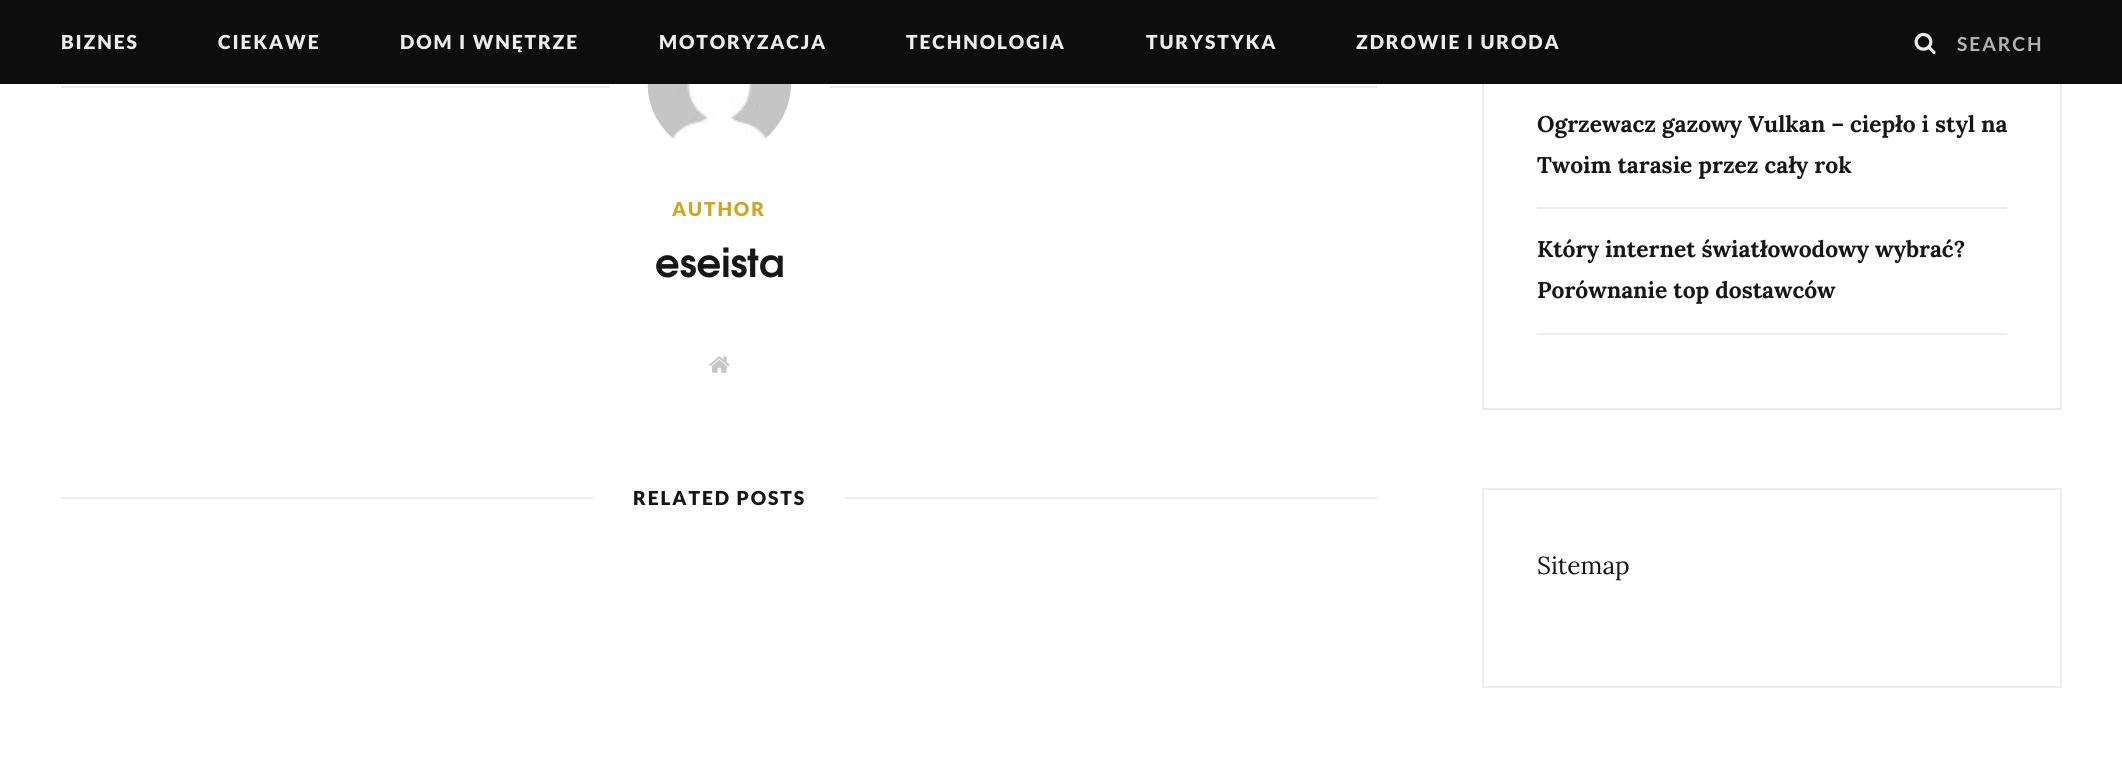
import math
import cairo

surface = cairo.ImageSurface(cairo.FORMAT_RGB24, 2122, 768)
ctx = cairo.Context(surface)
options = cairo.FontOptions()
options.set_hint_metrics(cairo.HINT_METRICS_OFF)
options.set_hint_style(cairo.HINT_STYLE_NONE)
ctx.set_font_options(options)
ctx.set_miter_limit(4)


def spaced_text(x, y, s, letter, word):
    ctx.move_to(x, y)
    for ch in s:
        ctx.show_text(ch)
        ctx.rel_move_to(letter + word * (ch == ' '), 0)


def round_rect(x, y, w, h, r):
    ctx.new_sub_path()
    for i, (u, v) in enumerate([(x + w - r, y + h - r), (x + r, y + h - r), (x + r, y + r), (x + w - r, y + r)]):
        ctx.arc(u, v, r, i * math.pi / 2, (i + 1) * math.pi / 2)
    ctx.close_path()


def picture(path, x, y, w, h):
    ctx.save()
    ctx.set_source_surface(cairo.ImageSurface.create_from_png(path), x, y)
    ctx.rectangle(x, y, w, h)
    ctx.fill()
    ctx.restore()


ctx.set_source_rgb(1, 1, 1)
ctx.paint()
ctx.set_source_rgb(0.922, 0.922, 0.922)
ctx.rectangle(61, 86, 1316, 2)
ctx.fill()
round_rect(628.5, -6.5, 182, 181, 90.5)
ctx.set_source_rgb(1, 1, 1)
ctx.set_line_width(39)
ctx.stroke()
ctx.rectangle(1483, -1, 578, 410)
ctx.set_source_rgb(0.922, 0.922, 0.922)
ctx.set_line_width(2)
ctx.stroke()
ctx.set_source_rgb(0.051, 0.051, 0.051)
ctx.rectangle(0, 0, 2122, 84)
ctx.fill()
ctx.select_font_face("Lato Black")
ctx.set_font_size(19.25)
ctx.set_source_rgb(0.925, 0.925, 0.925)
spaced_text(61, 49, "BIZNES", 1.9, 0)
spaced_text(218, 49, "CIEKAWE", 1.9, 0)
spaced_text(400, 49, "DOM I WNĘTRZE", 1.9, 0)
spaced_text(659, 49, "MOTORYZACJA", 1.9, 0)
spaced_text(906, 49, "TECHNOLOGIA", 1.9, 0)
spaced_text(1146, 49, "TURYSTYKA", 1.9, 0)
spaced_text(1356, 49, "ZDROWIE I URODA", 1.9, 0)
picture("img1.png", 1914, 32, 22, 22)
ctx.select_font_face("Lato", cairo.FONT_SLANT_NORMAL, cairo.FONT_WEIGHT_BOLD)
ctx.set_source_rgb(0.706, 0.706, 0.706)
spaced_text(1957, 51, "SEARCH", 1.9, 0)
picture("img2.png", 647, 84, 144, 55)
ctx.select_font_face("Lato Black")
ctx.set_source_rgb(0.808, 0.647, 0.145)
spaced_text(672, 216, "AUTHOR", 1.9, 0)
ctx.select_font_face("TeX Gyre Adventor", cairo.FONT_SLANT_NORMAL, cairo.FONT_WEIGHT_BOLD)
ctx.set_font_size(38.5)
ctx.set_source_rgb(0.086, 0.086, 0.086)
ctx.move_to(655, 277)
ctx.show_text("eseista")
picture("img3.png", 709, 356, 21, 17)
ctx.set_source_rgb(0.922, 0.922, 0.922)
ctx.rectangle(61, 497, 1316, 2)
ctx.fill()
ctx.set_source_rgb(1, 1, 1)
ctx.rectangle(593, 497, 252, 2)
ctx.fill()
ctx.select_font_face("Lato Black")
ctx.set_font_size(19.25)
ctx.set_source_rgb(0.086, 0.086, 0.086)
spaced_text(633, 505, "RELATED POSTS", 1.9, 0)
ctx.set_source_rgb(0.922, 0.922, 0.922)
ctx.rectangle(1537, 207, 470, 2)
ctx.fill()
ctx.select_font_face("Lora", cairo.FONT_SLANT_NORMAL, cairo.FONT_WEIGHT_BOLD)
ctx.set_font_size(22.75)
ctx.set_source_rgb(0.086, 0.086, 0.086)
ctx.move_to(1537, 132)
ctx.show_text("Ogrzewacz gazowy Vulkan – ciepło i styl na")
ctx.move_to(1537, 173)
ctx.show_text("Twoim tarasie przez cały rok")
ctx.set_source_rgb(0.922, 0.922, 0.922)
ctx.rectangle(1537, 333, 470, 2)
ctx.fill()
ctx.set_source_rgb(0.086, 0.086, 0.086)
ctx.move_to(1537, 257)
ctx.show_text("Który internet światłowodowy wybrać?")
ctx.move_to(1537, 298)
ctx.show_text("Porównanie top dostawców")
ctx.rectangle(1483, 489, 578, 198)
ctx.set_source_rgb(0.922, 0.922, 0.922)
ctx.stroke()
ctx.select_font_face("Lora")
ctx.set_font_size(24.5)
ctx.set_source_rgb(0.086, 0.086, 0.086)
ctx.move_to(1537, 574)
ctx.show_text("Sitemap")
surface.write_to_png("page.png")
